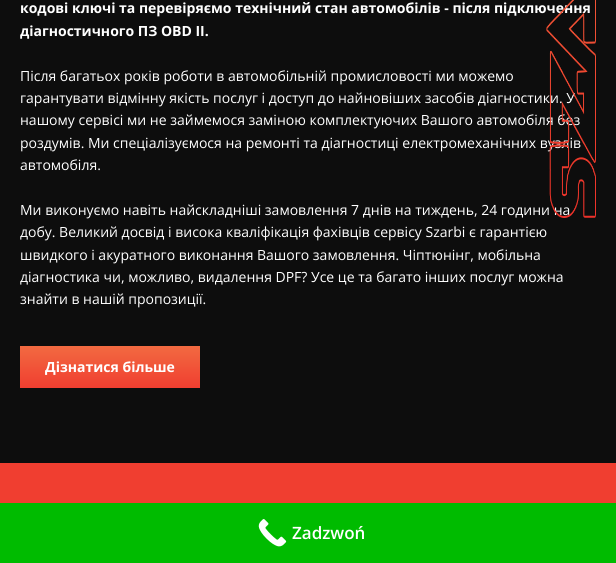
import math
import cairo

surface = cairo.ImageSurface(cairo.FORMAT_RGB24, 616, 563)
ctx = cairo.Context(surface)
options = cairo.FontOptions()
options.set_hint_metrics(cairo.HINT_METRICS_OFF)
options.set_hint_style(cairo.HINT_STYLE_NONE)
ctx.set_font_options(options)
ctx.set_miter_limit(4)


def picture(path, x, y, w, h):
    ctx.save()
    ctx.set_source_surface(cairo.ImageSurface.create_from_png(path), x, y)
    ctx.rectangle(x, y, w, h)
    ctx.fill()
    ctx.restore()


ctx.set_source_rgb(0.051, 0.051, 0.051)
ctx.paint()
ctx.select_font_face("Open Sans", cairo.FONT_SLANT_NORMAL, cairo.FONT_WEIGHT_BOLD)
ctx.set_font_size(14)
ctx.set_source_rgb(1, 1, 1)
ctx.move_to(20, 13)
ctx.show_text("кодові ключі та перевіряємо технічний стан автомобілів - після підключення")
ctx.select_font_face("Open Sans")
ctx.move_to(20, 103)
ctx.show_text("гарантувати відмінну якість послуг і доступ до найновіших засобів діагностики. У")
ctx.move_to(20, 125)
ctx.show_text("нашому сервісі ми не займемося заміною комплектуючих Вашого автомобіля без")
ctx.move_to(20, 148)
ctx.show_text("роздумів. Ми спеціалізуємося на ремонті та діагностиці електромеханічних вузлів")
ctx.move_to(20, 215)
ctx.show_text("Ми виконуємо навіть найскладніші замовлення 7 днів на тиждень, 24 години на")
picture("img1.png", 546, 0, 50, 218)
ctx.select_font_face("Open Sans", cairo.FONT_SLANT_NORMAL, cairo.FONT_WEIGHT_BOLD)
ctx.move_to(20, 36)
ctx.show_text("діагностичного ПЗ OBD II.")
ctx.select_font_face("Open Sans")
ctx.move_to(20, 81)
ctx.show_text("Після багатьох років роботи в автомобільній промисловості ми можемо")
ctx.move_to(20, 170)
ctx.show_text("автомобіля.")
ctx.move_to(20, 237)
ctx.show_text("добу. Великий досвід і висока кваліфікація фахівців сервісу Szarbi є гарантією")
ctx.move_to(20, 260)
ctx.show_text("швидкого і акуратного виконання Вашого замовлення. Чіптюнінг, мобільна")
ctx.move_to(20, 282)
ctx.show_text("діагностика чи, можливо, видалення DPF? Усе це та багато інших послуг можна")
ctx.move_to(20, 304)
ctx.show_text("знайти в нашій пропозиції.")
gradient = cairo.LinearGradient(110, 388, 110, 346)
gradient.add_color_stop_rgba(0, 0.941, 0.243, 0.188, 1)
gradient.add_color_stop_rgba(1, 0.949, 0.416, 0.255, 1)
ctx.set_source(gradient)
ctx.rectangle(20, 346, 180, 42)
ctx.fill()
ctx.select_font_face("Open Sans", cairo.FONT_SLANT_NORMAL, cairo.FONT_WEIGHT_BOLD)
ctx.set_source_rgb(1, 1, 1)
ctx.move_to(45, 372)
ctx.show_text("Дізнатися більше")
ctx.set_source_rgb(0.941, 0.243, 0.188)
ctx.rectangle(0, 463, 616, 40)
ctx.fill()
ctx.set_source_rgb(0, 0.733, 0)
ctx.rectangle(0, 503, 616, 60)
ctx.fill()
picture("img2.png", 258, 519, 29, 28)
ctx.select_font_face("Open Sans SemiBold")
ctx.set_font_size(17)
ctx.set_source_rgb(1, 1, 1)
ctx.move_to(292, 539)
ctx.show_text("Zadzwoń")
surface.write_to_png("page.png")
